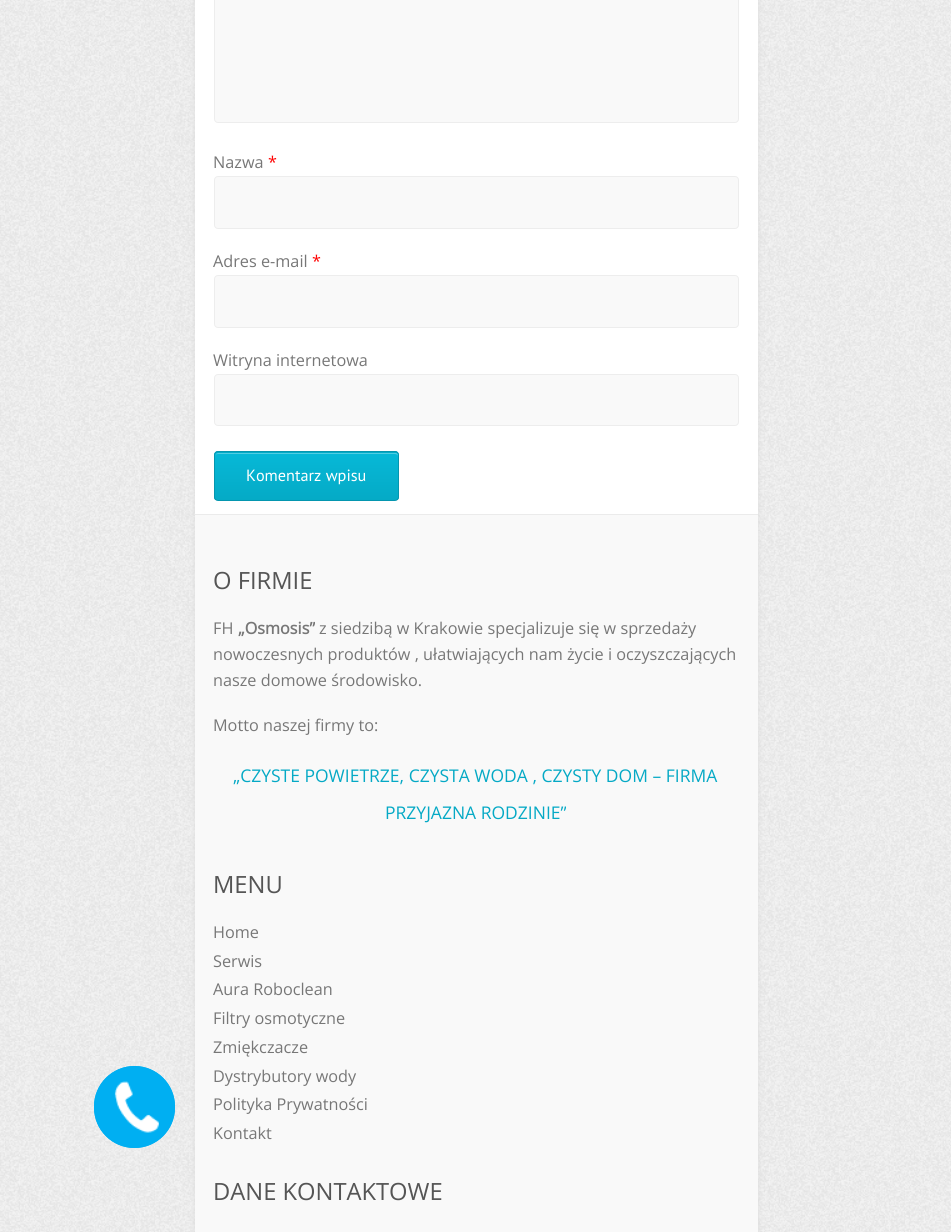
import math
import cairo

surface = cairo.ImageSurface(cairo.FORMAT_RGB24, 951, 1232)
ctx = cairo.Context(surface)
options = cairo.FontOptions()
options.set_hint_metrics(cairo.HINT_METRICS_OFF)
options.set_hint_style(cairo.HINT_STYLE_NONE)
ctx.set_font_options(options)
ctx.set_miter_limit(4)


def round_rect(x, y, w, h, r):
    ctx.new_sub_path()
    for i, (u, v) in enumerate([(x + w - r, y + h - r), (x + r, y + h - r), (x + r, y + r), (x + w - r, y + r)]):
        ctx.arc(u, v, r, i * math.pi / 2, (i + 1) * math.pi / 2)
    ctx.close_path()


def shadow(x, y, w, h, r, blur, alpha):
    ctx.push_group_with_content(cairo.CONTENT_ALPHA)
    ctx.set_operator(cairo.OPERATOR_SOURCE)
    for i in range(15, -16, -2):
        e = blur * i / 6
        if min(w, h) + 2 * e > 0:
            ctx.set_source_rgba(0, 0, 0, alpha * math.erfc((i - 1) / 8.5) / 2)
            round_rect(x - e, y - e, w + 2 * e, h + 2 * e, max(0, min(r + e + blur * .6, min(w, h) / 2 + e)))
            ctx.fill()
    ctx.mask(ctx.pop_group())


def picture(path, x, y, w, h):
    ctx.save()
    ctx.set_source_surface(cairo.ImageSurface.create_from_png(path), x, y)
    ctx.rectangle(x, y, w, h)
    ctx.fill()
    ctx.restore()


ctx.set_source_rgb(1, 1, 1)
ctx.paint()
picture("img1.png", 0, 0, 951, 1232)
round_rect(94.5, 1066.5, 80, 81, 40)
ctx.set_source_rgb(0, 0.686, 0.949)
ctx.set_line_width(1)
ctx.stroke()
round_rect(94, 1066, 81, 82, 40.5)
ctx.fill()
picture("img2.png", 114, 1081, 45, 52)
ctx.set_source_rgb(0.867, 0.867, 0.867)
shadow(195, -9, 563, 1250, 0, 3, 1)
ctx.set_source_rgb(1, 1, 1)
ctx.rectangle(195, 0, 563, 514)
ctx.fill()
ctx.set_source_rgb(0.976, 0.976, 0.976)
round_rect(214.5, -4.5, 524, 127, 3.5)
ctx.fill_preserve()
ctx.set_source_rgb(0.929, 0.929, 0.929)
ctx.stroke()
ctx.select_font_face("Open Sans")
ctx.set_font_size(16.25)
ctx.set_source_rgb(0.467, 0.467, 0.467)
ctx.move_to(213, 168)
ctx.show_text("Nazwa")
ctx.set_source_rgb(1, 0, 0)
ctx.move_to(268, 168)
ctx.show_text("*")
ctx.set_source_rgb(0.976, 0.976, 0.976)
round_rect(214.5, 176.5, 524, 52, 3.5)
ctx.fill_preserve()
ctx.set_source_rgb(0.929, 0.929, 0.929)
ctx.stroke()
ctx.set_source_rgb(0.467, 0.467, 0.467)
ctx.move_to(213, 267)
ctx.show_text("Adres e-mail")
ctx.set_source_rgb(1, 0, 0)
ctx.move_to(312, 267)
ctx.show_text("*")
ctx.set_source_rgb(0.976, 0.976, 0.976)
round_rect(214.5, 275.5, 524, 52, 3.5)
ctx.fill_preserve()
ctx.set_source_rgb(0.929, 0.929, 0.929)
ctx.stroke()
ctx.set_source_rgb(0.467, 0.467, 0.467)
ctx.move_to(213, 366)
ctx.show_text("Witryna internetowa")
ctx.set_source_rgb(0.976, 0.976, 0.976)
round_rect(214.5, 374.5, 524, 51, 3.5)
ctx.fill_preserve()
ctx.set_source_rgb(0.929, 0.929, 0.929)
ctx.stroke()
ctx.save()
round_rect(214, 451, 185, 50, 4)
ctx.clip()
gradient = cairo.LinearGradient(306, 405, 306, 453)
gradient.add_color_stop_rgba(0, 0.024, 0.722, 0.843, 1)
gradient.add_color_stop_rgba(1, 0.02, 0.667, 0.776, 1)
ctx.set_source(gradient)
ctx.rectangle(214, 451, 185, 2)
ctx.fill()
gradient = cairo.LinearGradient(306, 453, 306, 500)
gradient.add_color_stop_rgba(0, 0.024, 0.722, 0.843, 1)
gradient.add_color_stop_rgba(1, 0.02, 0.667, 0.776, 1)
ctx.set_source(gradient)
ctx.rectangle(214, 453, 185, 47)
ctx.fill()
ctx.restore()
ctx.set_source_rgb(0.318, 0.804, 0.89)
ctx.new_path()
ctx.move_to(218, 454)
ctx.line_to(395, 454)
ctx.curve_to(396, 454, 398, 455, 398, 456)
ctx.curve_to(398, 454, 397, 453, 396, 453)
ctx.line_to(218, 453)
ctx.line_to(216, 454)
ctx.line_to(215, 456)
ctx.curve_to(215, 455, 216, 454, 218, 454)
ctx.close_path()
ctx.fill()
round_rect(214.5, 451.5, 184, 49, 3.5)
ctx.set_source_rgb(0.02, 0.588, 0.686)
ctx.stroke()
ctx.select_font_face("PT Sans")
ctx.set_source_rgb(1, 1, 1)
ctx.move_to(246, 481)
ctx.show_text("Komentarz wpisu")
ctx.set_source_rgb(0.976, 0.976, 0.976)
ctx.rectangle(195, 515, 563, 717)
ctx.fill()
ctx.set_source_rgb(0.918, 0.918, 0.918)
ctx.rectangle(195, 514, 563, 1)
ctx.fill()
ctx.select_font_face("Open Sans")
ctx.set_font_size(23.75)
ctx.set_source_rgb(0.333, 0.333, 0.333)
ctx.move_to(213, 589)
ctx.show_text("O FIRMIE")
ctx.set_font_size(16.25)
ctx.set_source_rgb(0.467, 0.467, 0.467)
ctx.move_to(213, 634)
ctx.show_text("FH")
ctx.select_font_face("Open Sans", cairo.FONT_SLANT_NORMAL, cairo.FONT_WEIGHT_BOLD)
ctx.move_to(238, 634)
ctx.show_text("„Osmosis”")
ctx.select_font_face("Open Sans")
ctx.move_to(319, 634)
ctx.show_text("z siedzibą w Krakowie specjalizuje się w sprzedaży")
ctx.move_to(213, 660)
ctx.show_text("nowoczesnych produktów , ułatwiających nam życie i oczyszczających")
ctx.move_to(213, 686)
ctx.show_text("nasze domowe środowisko.")
ctx.move_to(213, 731)
ctx.show_text("Motto naszej firmy to:")
ctx.set_font_size(17.5)
ctx.set_source_rgb(0.02, 0.663, 0.773)
ctx.move_to(233, 782)
ctx.show_text("„CZYSTE POWIETRZE, CZYSTA WODA , CZYSTY DOM – FIRMA")
ctx.move_to(385, 819)
ctx.show_text("PRZYJAZNA RODZINIE”")
ctx.set_font_size(23.75)
ctx.set_source_rgb(0.333, 0.333, 0.333)
ctx.move_to(213, 893)
ctx.show_text("MENU")
ctx.set_font_size(16.25)
ctx.set_source_rgb(0.467, 0.467, 0.467)
ctx.move_to(213, 938)
ctx.show_text("Home")
ctx.move_to(213, 967)
ctx.show_text("Serwis")
ctx.move_to(213, 995)
ctx.show_text("Aura Roboclean")
ctx.move_to(213, 1024)
ctx.show_text("Filtry osmotyczne")
ctx.move_to(213, 1053)
ctx.show_text("Zmiękczacze")
ctx.move_to(213, 1082)
ctx.show_text("Dystrybutory wody")
ctx.move_to(213, 1110)
ctx.show_text("Polityka Prywatności")
ctx.move_to(213, 1139)
ctx.show_text("Kontakt")
ctx.set_font_size(23.75)
ctx.set_source_rgb(0.333, 0.333, 0.333)
ctx.move_to(213, 1200)
ctx.show_text("DANE KONTAKTOWE")
surface.write_to_png("page.png")
